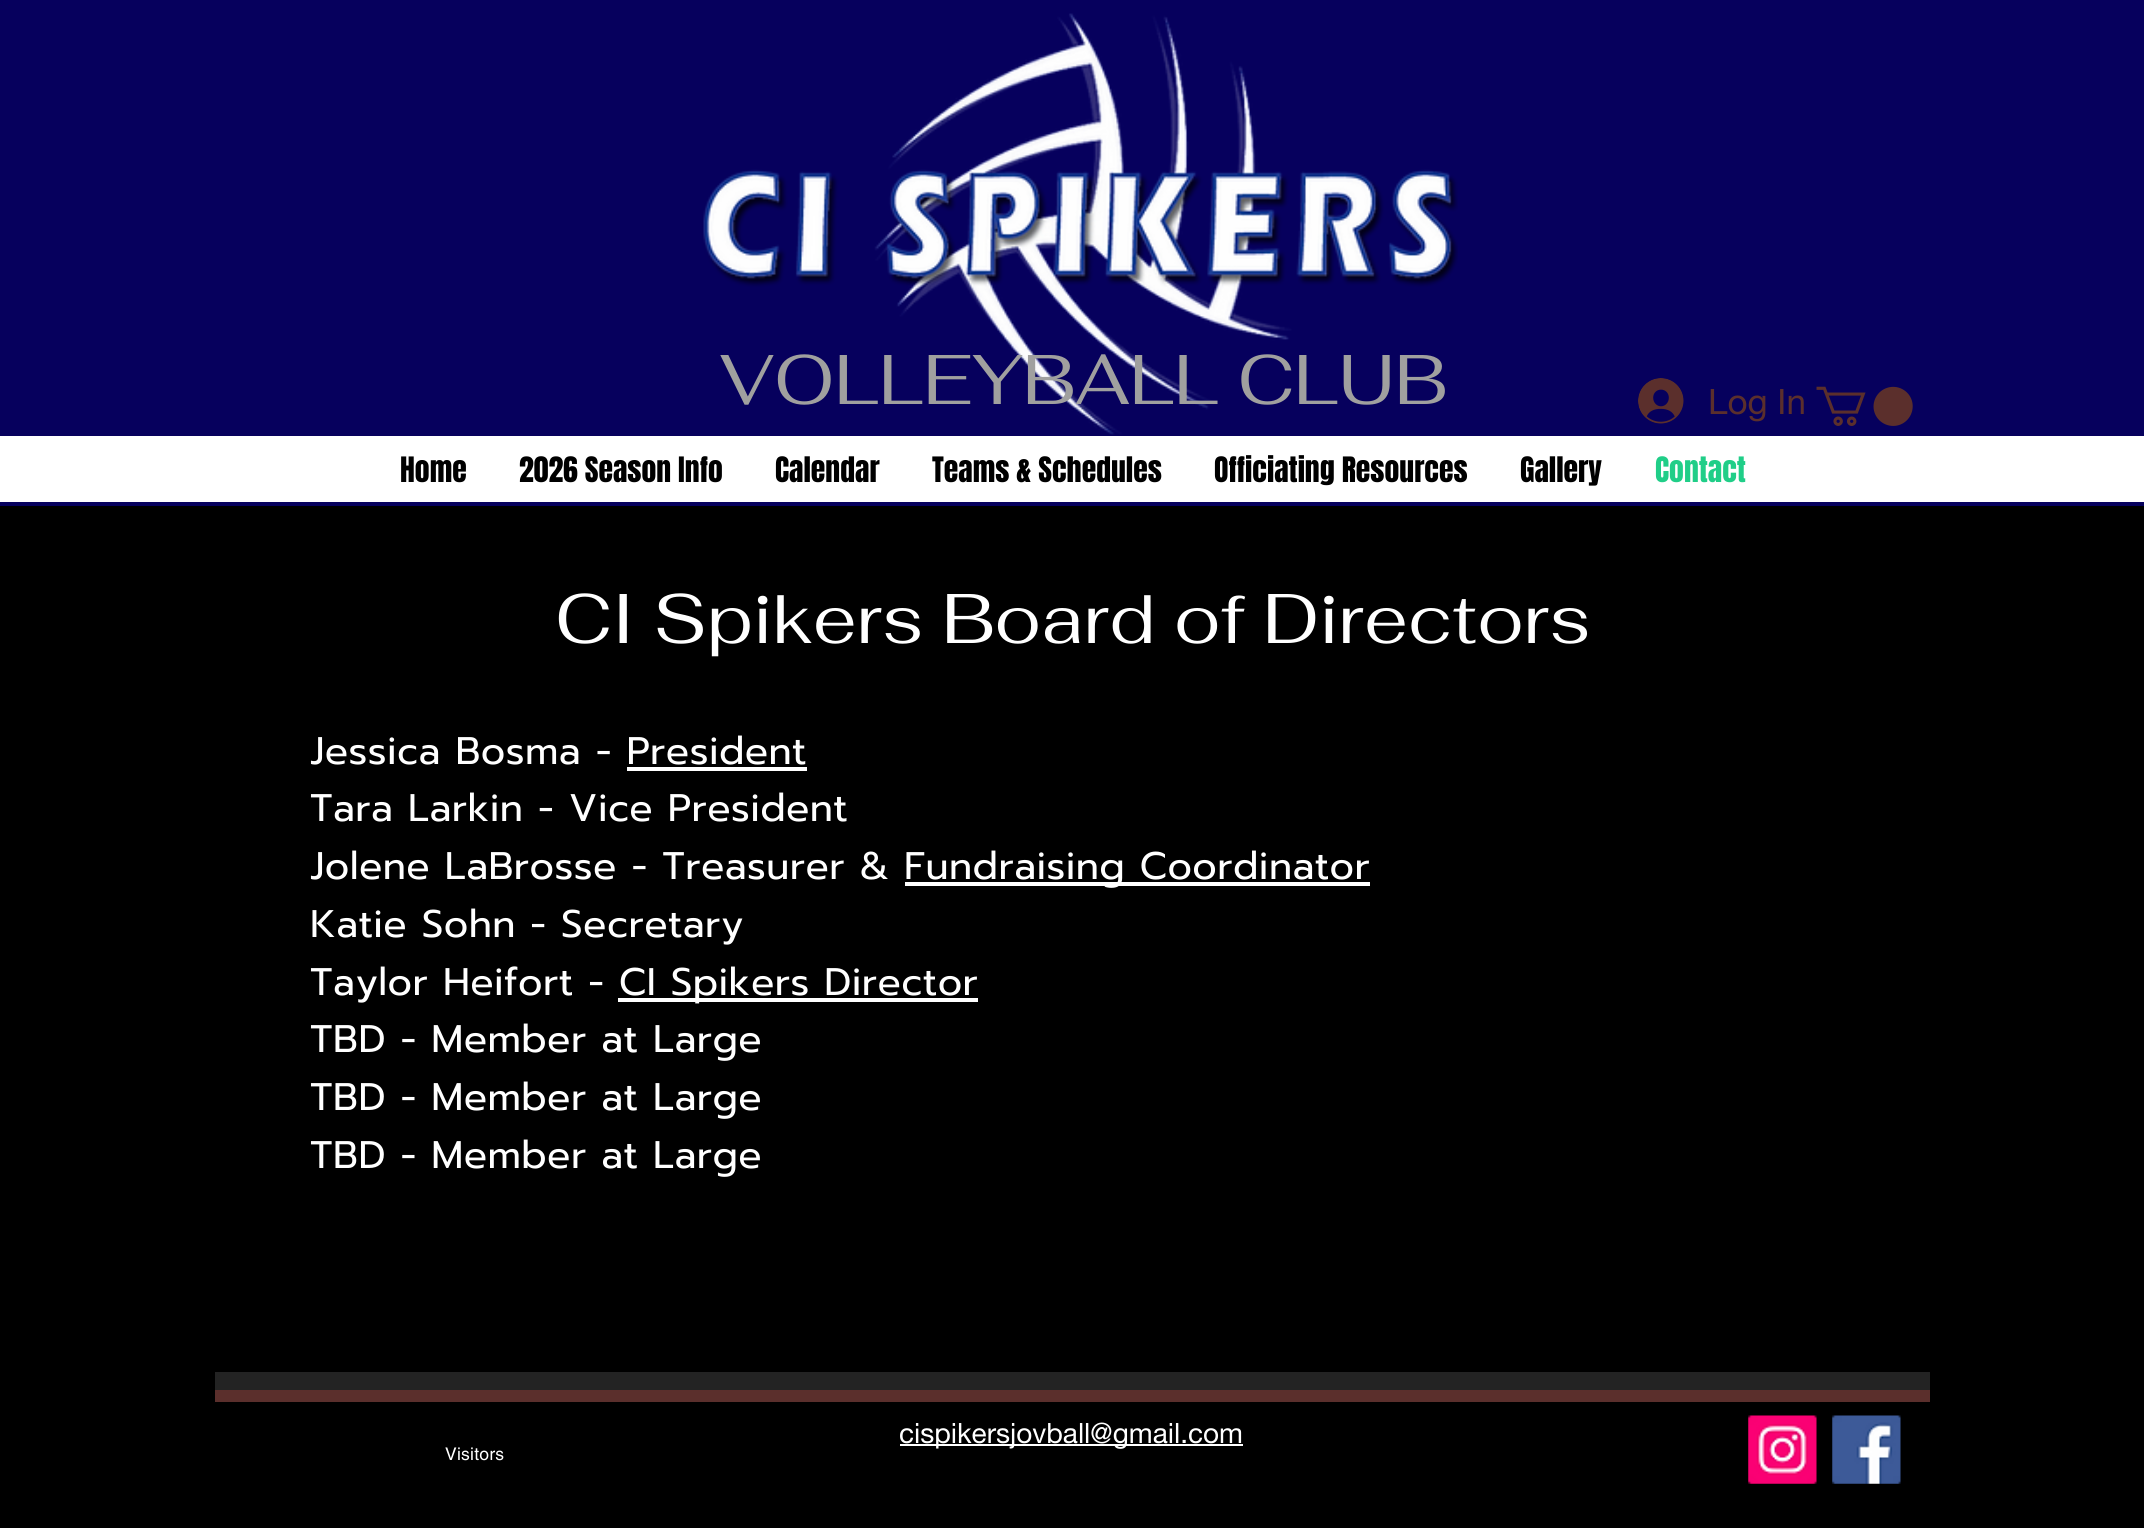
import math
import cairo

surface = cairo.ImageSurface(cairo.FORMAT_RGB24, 2144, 1528)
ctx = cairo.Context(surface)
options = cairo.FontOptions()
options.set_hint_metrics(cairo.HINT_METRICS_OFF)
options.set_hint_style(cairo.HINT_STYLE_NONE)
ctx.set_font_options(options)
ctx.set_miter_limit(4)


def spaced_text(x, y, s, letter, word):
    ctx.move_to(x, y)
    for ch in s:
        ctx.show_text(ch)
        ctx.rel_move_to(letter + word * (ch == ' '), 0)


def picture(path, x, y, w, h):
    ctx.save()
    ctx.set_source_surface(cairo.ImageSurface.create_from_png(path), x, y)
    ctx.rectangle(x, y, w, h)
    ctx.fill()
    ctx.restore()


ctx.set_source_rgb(0, 0, 0)
ctx.paint()
ctx.set_source_rgb(0.024, 0, 0.365)
ctx.rectangle(0, 0, 2144, 506)
ctx.fill()
picture("img1.png", 703, 13, 755, 422)
ctx.select_font_face("Fahkwang")
ctx.set_font_size(70)
ctx.set_source_rgb(0.627, 0.627, 0.624)
ctx.move_to(720, 404)
ctx.show_text("VOLLEYBALL CLUB")
picture("img2.png", 1638, 378, 46, 46)
ctx.select_font_face("helvetica neue")
ctx.set_font_size(35)
ctx.set_source_rgb(0.357, 0.184, 0.173)
ctx.move_to(1708, 414)
ctx.show_text("Log In")
picture("img3.png", 1816, 386, 97, 40)
ctx.set_source_rgb(1, 1, 1)
ctx.rectangle(0, 436, 2144, 66)
ctx.fill()
ctx.select_font_face("Anton")
ctx.set_font_size(29.75)
ctx.set_source_rgb(0, 0, 0)
ctx.move_to(400, 482)
ctx.show_text("Home")
ctx.move_to(519, 482)
ctx.show_text("2026 Season Info")
ctx.move_to(775, 482)
ctx.show_text("Calendar")
ctx.move_to(932, 482)
ctx.show_text("Teams & Schedules")
ctx.move_to(1214, 482)
ctx.show_text("Officiating Resources")
ctx.move_to(1520, 482)
ctx.show_text("Gallery")
ctx.set_source_rgb(0.125, 0.808, 0.533)
ctx.move_to(1655, 482)
ctx.show_text("Contact")
ctx.select_font_face("Fahkwang")
ctx.set_font_size(70)
ctx.set_source_rgb(1, 1, 1)
ctx.move_to(555, 643)
ctx.show_text("CI Spikers Board of Directors")
ctx.select_font_face("Prompt")
ctx.set_font_size(38.5)
spaced_text(310, 764, "Jessica Bosma - President", 0.4, 0)
ctx.rectangle(627, 767, 180, 4)
ctx.fill()
spaced_text(310, 821, "Tara Larkin - Vice President", 0.4, 0)
spaced_text(310, 879, "Jolene LaBrosse - Treasurer &", 0.4, 0)
ctx.rectangle(905, 882, 465, 4)
ctx.fill()
spaced_text(904, 879, "Fundraising Coordinator", 0.4, 0)
spaced_text(310, 937, "Katie Sohn - Secretary", 0.4, 0)
spaced_text(310, 995, "Taylor Heifort -", 0.4, 0)
ctx.rectangle(618, 998, 360, 4)
ctx.fill()
spaced_text(619, 995, "CI Spikers Director", 0.4, 0)
spaced_text(310, 1052, "TBD - Member at Large", 0.4, 0)
spaced_text(310, 1110, "TBD - Member at Large", 0.4, 0)
spaced_text(310, 1168, "TBD - Member at Large", 0.4, 0)
ctx.set_source_rgb(0.137, 0.137, 0.137)
ctx.rectangle(215, 1372, 1715, 18)
ctx.fill()
ctx.set_source_rgb(0.357, 0.184, 0.173)
ctx.rectangle(215, 1390, 1715, 12)
ctx.fill()
ctx.set_source_rgb(1, 1, 1)
ctx.rectangle(900, 1444, 343, 2)
ctx.fill()
ctx.select_font_face("helvetica neue")
ctx.set_font_size(28)
ctx.move_to(899, 1443)
ctx.show_text("cispikersjovball@gmail.com")
picture("img4.png", 1748, 1415, 69, 69)
picture("img5.png", 1832, 1415, 69, 69)
ctx.select_font_face("helvetica")
ctx.set_font_size(17.5)
spaced_text(445, 1460, "Visitors", 0.25, 0)
surface.write_to_png("page.png")
